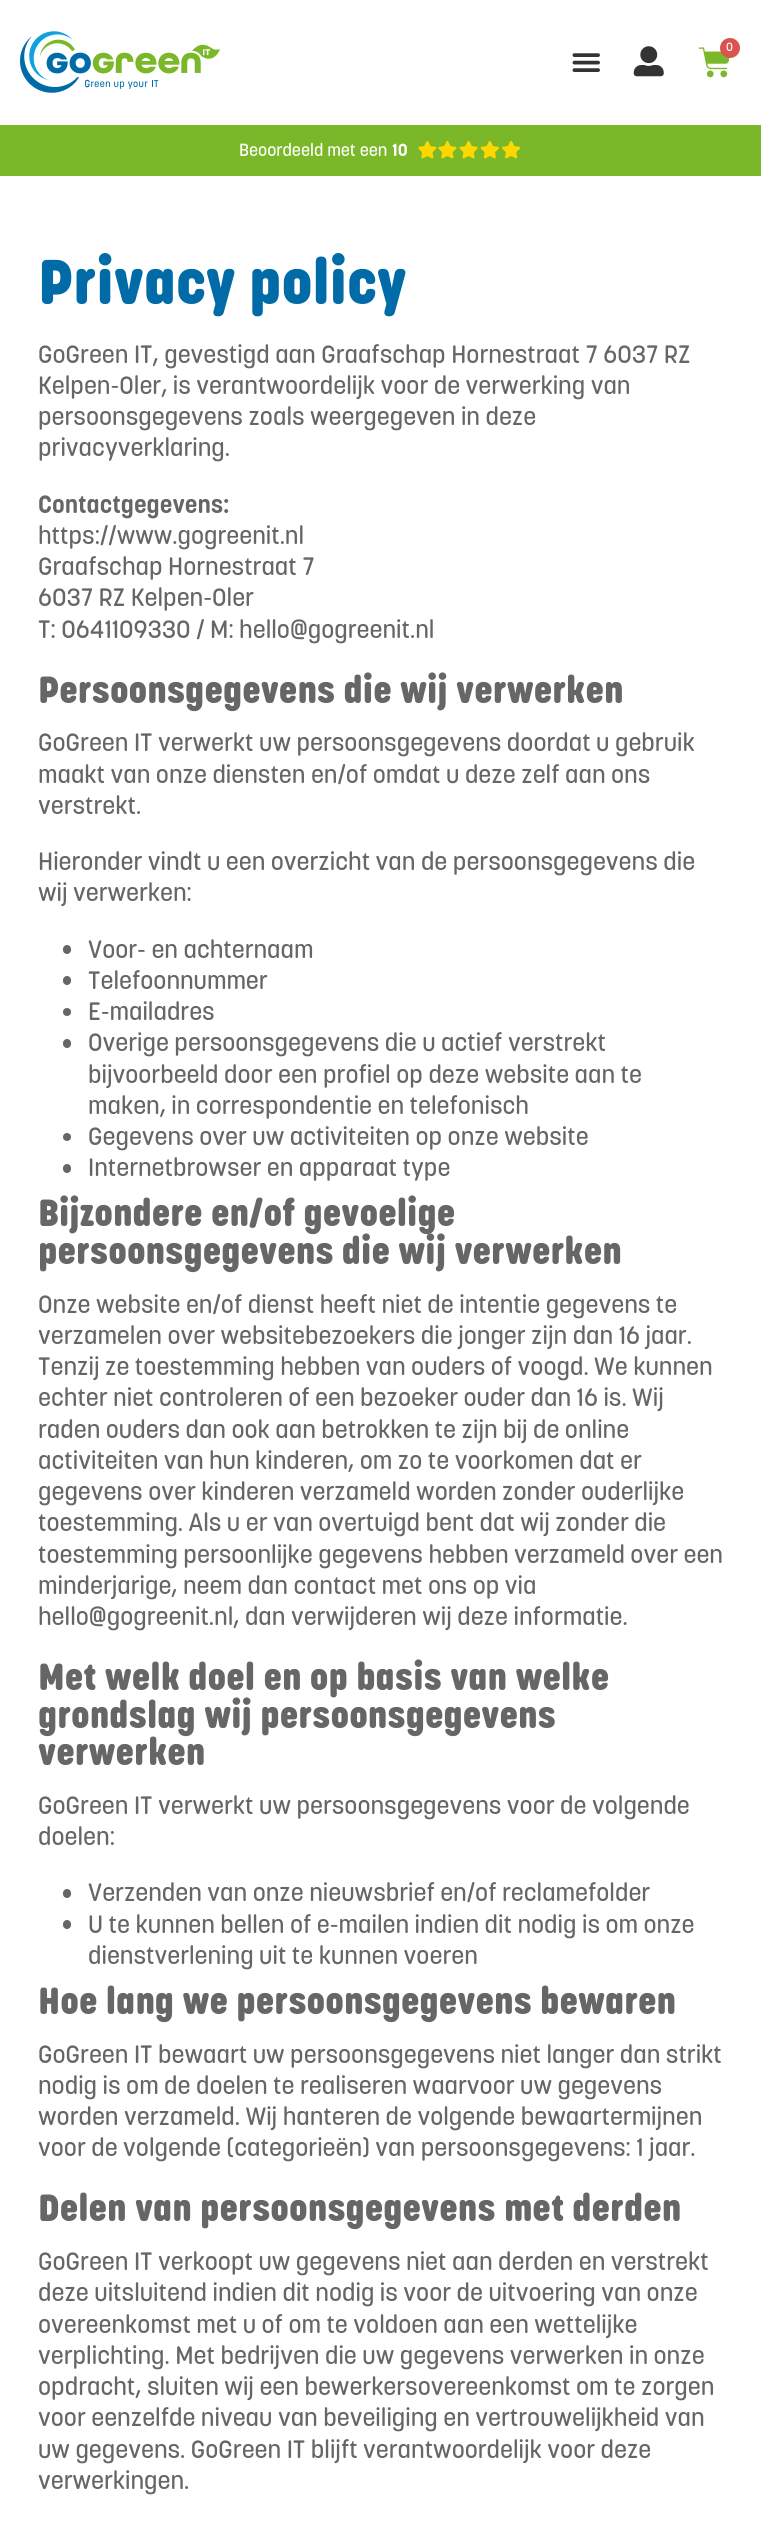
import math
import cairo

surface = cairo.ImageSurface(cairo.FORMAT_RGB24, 761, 2523)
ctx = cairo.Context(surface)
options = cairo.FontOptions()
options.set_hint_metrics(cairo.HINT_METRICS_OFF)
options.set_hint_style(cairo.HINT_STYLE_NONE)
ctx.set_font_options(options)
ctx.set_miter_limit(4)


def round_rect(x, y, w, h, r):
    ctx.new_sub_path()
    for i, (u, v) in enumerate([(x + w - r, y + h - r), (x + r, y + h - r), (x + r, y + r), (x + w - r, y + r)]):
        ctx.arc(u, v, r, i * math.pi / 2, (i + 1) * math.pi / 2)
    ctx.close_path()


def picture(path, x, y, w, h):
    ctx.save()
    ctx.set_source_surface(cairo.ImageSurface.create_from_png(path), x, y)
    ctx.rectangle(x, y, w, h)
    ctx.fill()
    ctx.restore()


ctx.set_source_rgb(1, 1, 1)
ctx.paint()
picture("img1.png", 20, 31, 200, 62)
picture("img2.png", 572, 53, 28, 19)
picture("img3.png", 633, 46, 31, 31)
picture("img4.png", 698, 47, 32, 31)
ctx.set_source_rgb(0.851, 0.325, 0.31)
ctx.arc(730, 48, 10, 0, 2 * math.pi)
ctx.fill()
ctx.select_font_face("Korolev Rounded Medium")
ctx.set_font_size(12)
ctx.set_source_rgb(1, 1, 1)
ctx.move_to(726, 51)
ctx.show_text("0")
ctx.set_source_rgb(0.478, 0.722, 0.161)
ctx.rectangle(0, 125, 761, 51)
ctx.fill()
ctx.set_font_size(17.5)
ctx.set_source_rgb(1, 1, 1)
ctx.move_to(239, 156)
ctx.show_text("Beoordeeld met een")
ctx.select_font_face("Korolev Rounded", cairo.FONT_SLANT_NORMAL, cairo.FONT_WEIGHT_BOLD)
ctx.move_to(392, 156)
ctx.show_text("10")
picture("img5.png", 418, 141, 19, 18)
picture("img5.png", 438, 141, 19, 18)
picture("img6.png", 459, 141, 19, 18)
picture("img7.png", 480, 141, 19, 18)
picture("img8.png", 502, 141, 19, 18)
ctx.select_font_face("Korolev Rounded Black")
ctx.set_font_size(62.5)
ctx.set_source_rgb(0, 0.42, 0.651)
ctx.move_to(38, 304)
ctx.show_text("Privacy policy")
ctx.select_font_face("Korolev Rounded Medium")
ctx.set_font_size(25)
ctx.set_source_rgb(0.4, 0.4, 0.4)
ctx.move_to(38, 363)
ctx.show_text("GoGreen IT, gevestigd aan Graafschap Hornestraat 7 6037 RZ")
ctx.move_to(38, 394)
ctx.show_text("Kelpen-Oler, is verantwoordelijk voor de verwerking van")
ctx.move_to(38, 425)
ctx.show_text("persoonsgegevens zoals weergegeven in deze")
ctx.move_to(38, 456)
ctx.show_text("privacyverklaring.")
ctx.select_font_face("Korolev Rounded", cairo.FONT_SLANT_NORMAL, cairo.FONT_WEIGHT_BOLD)
ctx.move_to(38, 513)
ctx.show_text("Contactgegevens:")
ctx.select_font_face("Korolev Rounded Medium")
ctx.move_to(38, 544)
ctx.show_text("https://www.gogreenit.nl")
ctx.move_to(38, 575)
ctx.show_text("Graafschap Hornestraat 7")
ctx.move_to(38, 606)
ctx.show_text("6037 RZ Kelpen-Oler")
ctx.move_to(38, 638)
ctx.show_text("T: 0641109330 / M: hello@gogreenit.nl")
ctx.select_font_face("Korolev Rounded Black")
ctx.set_font_size(37.5)
ctx.move_to(38, 703)
ctx.show_text("Persoonsgegevens die wij verwerken")
ctx.select_font_face("Korolev Rounded Medium")
ctx.set_font_size(25)
ctx.move_to(38, 751)
ctx.show_text("GoGreen IT verwerkt uw persoonsgegevens doordat u gebruik")
ctx.move_to(38, 783)
ctx.show_text("maakt van onze diensten en/of omdat u deze zelf aan ons")
ctx.move_to(38, 814)
ctx.show_text("verstrekt.")
ctx.move_to(38, 870)
ctx.show_text("Hieronder vindt u een overzicht van de persoonsgegevens die")
ctx.move_to(38, 901)
ctx.show_text("wij verwerken:")
round_rect(63, 945, 8, 9, 4)
ctx.fill()
ctx.move_to(88, 958)
ctx.show_text("Voor- en achternaam")
round_rect(63, 976, 8, 9, 4)
ctx.fill()
ctx.move_to(88, 989)
ctx.show_text("Telefoonnummer")
ctx.new_path()
ctx.arc(67, 1012, 4, 0, 2 * math.pi)
ctx.fill()
ctx.move_to(88, 1020)
ctx.show_text("E-mailadres")
round_rect(63, 1039, 8, 9, 4)
ctx.fill()
ctx.move_to(88, 1051)
ctx.show_text("Overige persoonsgegevens die u actief verstrekt")
ctx.move_to(88, 1083)
ctx.show_text("bijvoorbeeld door een profiel op deze website aan te")
ctx.move_to(88, 1114)
ctx.show_text("maken, in correspondentie en telefonisch")
ctx.new_path()
ctx.arc(67, 1137, 4, 0, 2 * math.pi)
ctx.fill()
ctx.move_to(88, 1145)
ctx.show_text("Gegevens over uw activiteiten op onze website")
round_rect(63, 1164, 8, 9, 4)
ctx.fill()
ctx.move_to(88, 1176)
ctx.show_text("Internetbrowser en apparaat type")
ctx.select_font_face("Korolev Rounded Black")
ctx.set_font_size(37.5)
ctx.move_to(38, 1226)
ctx.show_text("Bijzondere en/of gevoelige")
ctx.move_to(38, 1264)
ctx.show_text("persoonsgegevens die wij verwerken")
ctx.select_font_face("Korolev Rounded Medium")
ctx.set_font_size(25)
ctx.move_to(38, 1313)
ctx.show_text("Onze website en/of dienst heeft niet de intentie gegevens te")
ctx.move_to(38, 1344)
ctx.show_text("verzamelen over websitebezoekers die jonger zijn dan 16 jaar.")
ctx.move_to(38, 1375)
ctx.show_text("Tenzij ze toestemming hebben van ouders of voogd. We kunnen")
ctx.move_to(38, 1406)
ctx.show_text("echter niet controleren of een bezoeker ouder dan 16 is. Wij")
ctx.move_to(38, 1438)
ctx.show_text("raden ouders dan ook aan betrokken te zijn bij de online")
ctx.move_to(38, 1469)
ctx.show_text("activiteiten van hun kinderen, om zo te voorkomen dat er")
ctx.move_to(38, 1500)
ctx.show_text("gegevens over kinderen verzameld worden zonder ouderlijke")
ctx.move_to(38, 1531)
ctx.show_text("toestemming. Als u er van overtuigd bent dat wij zonder die")
ctx.move_to(38, 1563)
ctx.show_text("toestemming persoonlijke gegevens hebben verzameld over een")
ctx.move_to(38, 1594)
ctx.show_text("minderjarige, neem dan contact met ons op via")
ctx.move_to(38, 1625)
ctx.show_text("hello@gogreenit.nl, dan verwijderen wij deze informatie.")
ctx.select_font_face("Korolev Rounded Black")
ctx.set_font_size(37.5)
ctx.move_to(38, 1690)
ctx.show_text("Met welk doel en op basis van welke")
ctx.move_to(38, 1728)
ctx.show_text("grondslag wij persoonsgegevens")
ctx.move_to(38, 1765)
ctx.show_text("verwerken")
ctx.select_font_face("Korolev Rounded Medium")
ctx.set_font_size(25)
ctx.move_to(38, 1814)
ctx.show_text("GoGreen IT verwerkt uw persoonsgegevens voor de volgende")
ctx.move_to(38, 1845)
ctx.show_text("doelen:")
round_rect(63, 1889, 8, 9, 4)
ctx.fill()
ctx.move_to(88, 1901)
ctx.show_text("Verzenden van onze nieuwsbrief en/of reclamefolder")
round_rect(63, 1920, 8, 9, 4)
ctx.fill()
ctx.move_to(88, 1933)
ctx.show_text("U te kunnen bellen of e-mailen indien dit nodig is om onze")
ctx.move_to(88, 1964)
ctx.show_text("dienstverlening uit te kunnen voeren")
ctx.select_font_face("Korolev Rounded Black")
ctx.set_font_size(37.5)
ctx.move_to(38, 2014)
ctx.show_text("Hoe lang we persoonsgegevens bewaren")
ctx.select_font_face("Korolev Rounded Medium")
ctx.set_font_size(25)
ctx.move_to(38, 2063)
ctx.show_text("GoGreen IT bewaart uw persoonsgegevens niet langer dan strikt")
ctx.move_to(38, 2094)
ctx.show_text("nodig is om de doelen te realiseren waarvoor uw gegevens")
ctx.move_to(38, 2125)
ctx.show_text("worden verzameld. Wij hanteren de volgende bewaartermijnen")
ctx.move_to(38, 2156)
ctx.show_text("voor de volgende (categorieën) van persoonsgegevens: 1 jaar.")
ctx.select_font_face("Korolev Rounded Black")
ctx.set_font_size(37.5)
ctx.move_to(38, 2221)
ctx.show_text("Delen van persoonsgegevens met derden")
ctx.select_font_face("Korolev Rounded Medium")
ctx.set_font_size(25)
ctx.move_to(38, 2270)
ctx.show_text("GoGreen IT verkoopt uw gegevens niet aan derden en verstrekt")
ctx.move_to(38, 2301)
ctx.show_text("deze uitsluitend indien dit nodig is voor de uitvoering van onze")
ctx.move_to(38, 2333)
ctx.show_text("overeenkomst met u of om te voldoen aan een wettelijke")
ctx.move_to(38, 2364)
ctx.show_text("verplichting. Met bedrijven die uw gegevens verwerken in onze")
ctx.move_to(38, 2395)
ctx.show_text("opdracht, sluiten wij een bewerkersovereenkomst om te zorgen")
ctx.move_to(38, 2426)
ctx.show_text("voor eenzelfde niveau van beveiliging en vertrouwelijkheid van")
ctx.move_to(38, 2458)
ctx.show_text("uw gegevens. GoGreen IT blijft verantwoordelijk voor deze")
ctx.move_to(38, 2489)
ctx.show_text("verwerkingen.")
surface.write_to_png("page.png")
